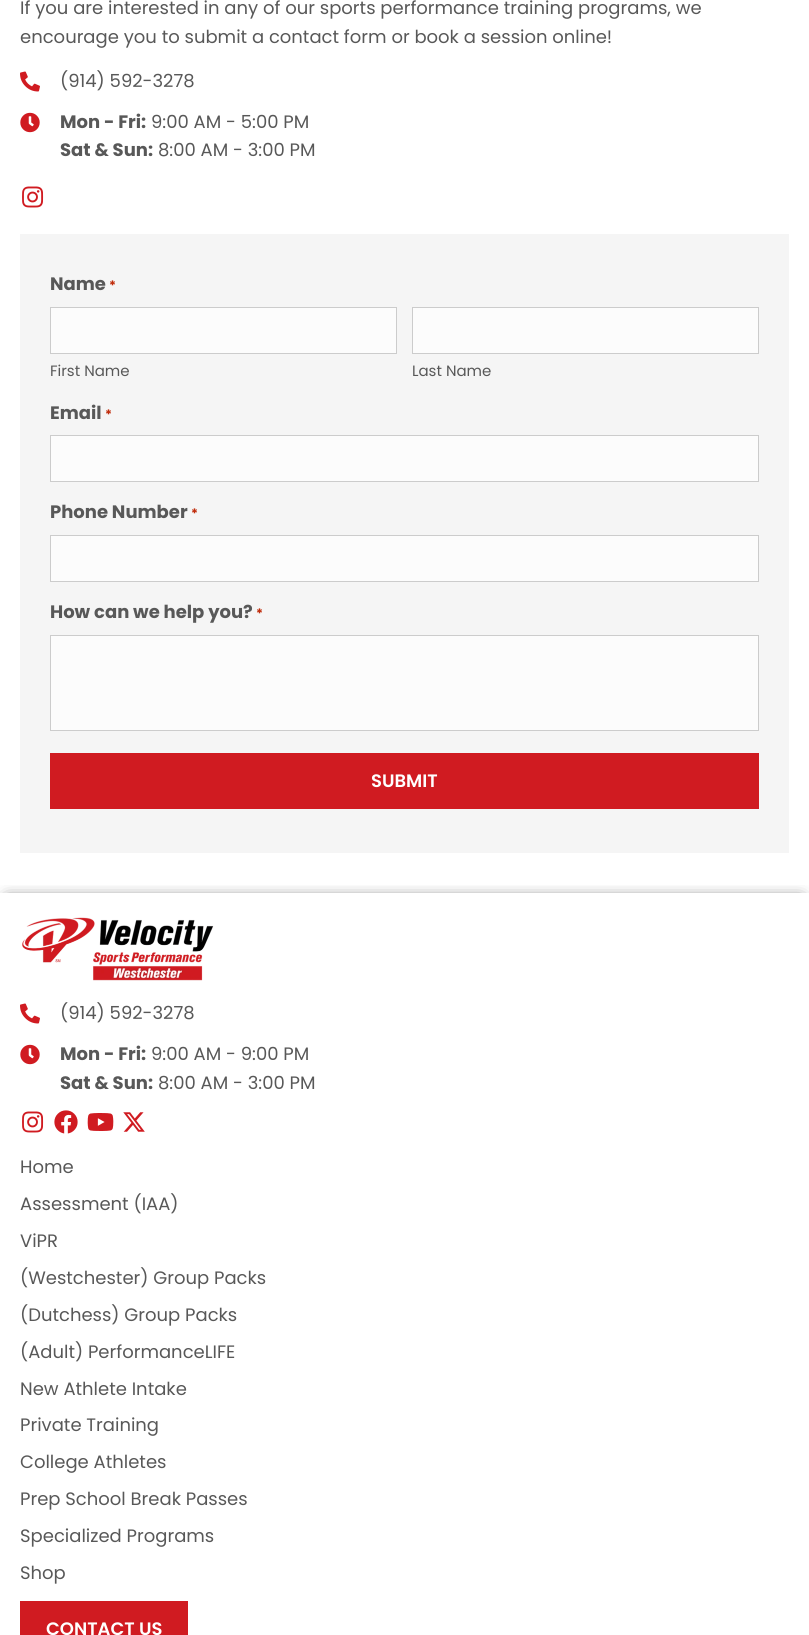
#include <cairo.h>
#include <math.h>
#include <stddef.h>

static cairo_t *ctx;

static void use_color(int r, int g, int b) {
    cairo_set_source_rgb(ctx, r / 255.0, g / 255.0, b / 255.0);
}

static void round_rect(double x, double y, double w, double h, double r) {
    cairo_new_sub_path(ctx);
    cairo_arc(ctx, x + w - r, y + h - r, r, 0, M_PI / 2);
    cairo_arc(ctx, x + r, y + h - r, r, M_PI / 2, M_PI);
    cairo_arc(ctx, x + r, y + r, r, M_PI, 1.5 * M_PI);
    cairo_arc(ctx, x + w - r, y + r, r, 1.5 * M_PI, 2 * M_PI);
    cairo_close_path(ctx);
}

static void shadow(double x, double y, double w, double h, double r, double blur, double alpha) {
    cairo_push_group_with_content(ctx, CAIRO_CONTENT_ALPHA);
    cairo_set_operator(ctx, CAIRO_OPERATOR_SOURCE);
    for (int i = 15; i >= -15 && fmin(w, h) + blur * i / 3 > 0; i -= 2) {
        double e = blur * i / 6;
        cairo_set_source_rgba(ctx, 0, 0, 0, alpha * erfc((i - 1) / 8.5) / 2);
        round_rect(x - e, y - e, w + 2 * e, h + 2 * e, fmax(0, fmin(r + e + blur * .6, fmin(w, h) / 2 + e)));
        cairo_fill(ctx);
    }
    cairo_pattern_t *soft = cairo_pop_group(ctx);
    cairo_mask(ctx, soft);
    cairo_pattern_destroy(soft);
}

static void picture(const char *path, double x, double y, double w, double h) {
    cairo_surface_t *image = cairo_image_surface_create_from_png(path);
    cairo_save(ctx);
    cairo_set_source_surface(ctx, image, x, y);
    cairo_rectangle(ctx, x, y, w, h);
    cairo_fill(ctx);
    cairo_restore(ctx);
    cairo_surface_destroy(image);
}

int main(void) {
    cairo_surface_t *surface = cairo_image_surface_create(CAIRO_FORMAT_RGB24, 809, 1635);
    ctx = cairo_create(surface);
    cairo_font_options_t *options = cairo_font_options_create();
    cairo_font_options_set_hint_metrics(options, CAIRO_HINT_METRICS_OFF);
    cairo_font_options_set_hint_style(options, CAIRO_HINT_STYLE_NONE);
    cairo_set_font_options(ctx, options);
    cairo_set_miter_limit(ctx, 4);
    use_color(255, 255, 255);
    cairo_paint(ctx);
    cairo_select_font_face(ctx, "Poppins", CAIRO_FONT_SLANT_NORMAL, CAIRO_FONT_WEIGHT_NORMAL);
    cairo_set_font_size(ctx, 18);
    use_color(88, 88, 88);
    cairo_move_to(ctx, 20, 14);
    cairo_show_text(ctx, "If you are interested in any of our sports performance training programs, we");
    cairo_move_to(ctx, 20, 43);
    cairo_show_text(ctx, "encourage you to submit a contact form or book a session online!");
    picture("img1.png", 20, 71, 20, 21);
    cairo_move_to(ctx, 60, 87);
    cairo_show_text(ctx, "(914) 592-3278");
    picture("img2.png", 20, 112, 20, 21);
    cairo_select_font_face(ctx, "Poppins", CAIRO_FONT_SLANT_NORMAL, CAIRO_FONT_WEIGHT_BOLD);
    cairo_move_to(ctx, 60, 128);
    cairo_show_text(ctx, "Mon - Fri:");
    cairo_select_font_face(ctx, "Poppins", CAIRO_FONT_SLANT_NORMAL, CAIRO_FONT_WEIGHT_NORMAL);
    cairo_move_to(ctx, 151, 128);
    cairo_show_text(ctx, "9:00 AM - 5:00 PM");
    cairo_select_font_face(ctx, "Poppins", CAIRO_FONT_SLANT_NORMAL, CAIRO_FONT_WEIGHT_BOLD);
    cairo_move_to(ctx, 60, 156);
    cairo_show_text(ctx, "Sat & Sun:");
    cairo_select_font_face(ctx, "Poppins", CAIRO_FONT_SLANT_NORMAL, CAIRO_FONT_WEIGHT_NORMAL);
    cairo_move_to(ctx, 158, 156);
    cairo_show_text(ctx, "8:00 AM - 3:00 PM");
    picture("img3.png", 22, 186, 22, 22);
    use_color(245, 245, 245);
    cairo_rectangle(ctx, 20, 234, 769, 619);
    cairo_fill(ctx);
    cairo_select_font_face(ctx, "Poppins", CAIRO_FONT_SLANT_NORMAL, CAIRO_FONT_WEIGHT_BOLD);
    use_color(88, 88, 88);
    cairo_move_to(ctx, 50, 290);
    cairo_show_text(ctx, "Name");
    cairo_set_font_size(ctx, 13);
    use_color(192, 43, 10);
    cairo_move_to(ctx, 109, 290);
    cairo_show_text(ctx, "*");
    use_color(252, 252, 252);
    cairo_rectangle(ctx, 50.5, 307.5, 346, 46);
    cairo_fill_preserve(ctx);
    use_color(204, 204, 204);
    cairo_set_line_width(ctx, 1);
    cairo_stroke(ctx);
    cairo_select_font_face(ctx, "Poppins", CAIRO_FONT_SLANT_NORMAL, CAIRO_FONT_WEIGHT_NORMAL);
    cairo_set_font_size(ctx, 15);
    use_color(88, 88, 88);
    cairo_move_to(ctx, 50, 376);
    cairo_show_text(ctx, "First Name");
    use_color(252, 252, 252);
    cairo_rectangle(ctx, 412.5, 307.5, 346, 46);
    cairo_fill_preserve(ctx);
    use_color(204, 204, 204);
    cairo_stroke(ctx);
    use_color(88, 88, 88);
    cairo_move_to(ctx, 412, 376);
    cairo_show_text(ctx, "Last Name");
    cairo_select_font_face(ctx, "Poppins", CAIRO_FONT_SLANT_NORMAL, CAIRO_FONT_WEIGHT_BOLD);
    cairo_set_font_size(ctx, 18);
    cairo_move_to(ctx, 50, 419);
    cairo_show_text(ctx, "Email");
    cairo_set_font_size(ctx, 13);
    use_color(192, 43, 10);
    cairo_move_to(ctx, 105, 419);
    cairo_show_text(ctx, "*");
    use_color(252, 252, 252);
    cairo_rectangle(ctx, 50.5, 435.5, 708, 46);
    cairo_fill_preserve(ctx);
    use_color(204, 204, 204);
    cairo_stroke(ctx);
    cairo_set_font_size(ctx, 18);
    use_color(88, 88, 88);
    cairo_move_to(ctx, 50, 518);
    cairo_show_text(ctx, "Phone Number");
    cairo_set_font_size(ctx, 13);
    use_color(192, 43, 10);
    cairo_move_to(ctx, 191, 518);
    cairo_show_text(ctx, "*");
    use_color(252, 252, 252);
    cairo_rectangle(ctx, 50.5, 535.5, 708, 46);
    cairo_fill_preserve(ctx);
    use_color(204, 204, 204);
    cairo_stroke(ctx);
    cairo_set_font_size(ctx, 18);
    use_color(88, 88, 88);
    cairo_move_to(ctx, 50, 618);
    cairo_show_text(ctx, "How can we help you?");
    cairo_set_font_size(ctx, 13);
    use_color(192, 43, 10);
    cairo_move_to(ctx, 256, 618);
    cairo_show_text(ctx, "*");
    use_color(252, 252, 252);
    cairo_rectangle(ctx, 50.5, 635.5, 708, 95);
    cairo_fill_preserve(ctx);
    use_color(204, 204, 204);
    cairo_stroke(ctx);
    use_color(208, 27, 33);
    cairo_rectangle(ctx, 50, 753, 709, 56);
    cairo_fill(ctx);
    cairo_select_font_face(ctx, "Poppins SemiBold", CAIRO_FONT_SLANT_NORMAL, CAIRO_FONT_WEIGHT_NORMAL);
    cairo_set_font_size(ctx, 18);
    use_color(255, 255, 255);
    cairo_move_to(ctx, 371, 787);
    cairo_show_text(ctx, "SUBMIT");
    cairo_save(ctx);
    cairo_rectangle(ctx, 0, 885, 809, 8);
    cairo_clip(ctx);
    use_color(0, 0, 0);
    shadow(8, 901, 793, 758, 0, 8, 1);
    cairo_restore(ctx);
    picture("img4.png", 22, 917, 192, 64);
    picture("img1.png", 20, 1003, 20, 21);
    cairo_select_font_face(ctx, "Poppins", CAIRO_FONT_SLANT_NORMAL, CAIRO_FONT_WEIGHT_NORMAL);
    use_color(88, 88, 88);
    cairo_move_to(ctx, 60, 1019);
    cairo_show_text(ctx, "(914) 592-3278");
    picture("img2.png", 20, 1044, 20, 21);
    cairo_select_font_face(ctx, "Poppins", CAIRO_FONT_SLANT_NORMAL, CAIRO_FONT_WEIGHT_BOLD);
    cairo_move_to(ctx, 60, 1060);
    cairo_show_text(ctx, "Mon - Fri:");
    cairo_select_font_face(ctx, "Poppins", CAIRO_FONT_SLANT_NORMAL, CAIRO_FONT_WEIGHT_NORMAL);
    cairo_move_to(ctx, 151, 1060);
    cairo_show_text(ctx, "9:00 AM - 9:00 PM");
    cairo_select_font_face(ctx, "Poppins", CAIRO_FONT_SLANT_NORMAL, CAIRO_FONT_WEIGHT_BOLD);
    cairo_move_to(ctx, 60, 1089);
    cairo_show_text(ctx, "Sat & Sun:");
    cairo_select_font_face(ctx, "Poppins", CAIRO_FONT_SLANT_NORMAL, CAIRO_FONT_WEIGHT_NORMAL);
    cairo_move_to(ctx, 158, 1089);
    cairo_show_text(ctx, "8:00 AM - 3:00 PM");
    picture("img3.png", 22, 1111, 22, 22);
    picture("img5.png", 54, 1110, 24, 24);
    picture("img6.png", 87, 1113, 27, 18);
    picture("img7.png", 123, 1112, 22, 20);
    cairo_move_to(ctx, 20, 1173);
    cairo_show_text(ctx, "Home");
    cairo_move_to(ctx, 20, 1210);
    cairo_show_text(ctx, "Assessment (IAA)");
    cairo_move_to(ctx, 20, 1247);
    cairo_show_text(ctx, "ViPR");
    cairo_move_to(ctx, 20, 1284);
    cairo_show_text(ctx, "(Westchester) Group Packs");
    cairo_move_to(ctx, 20, 1321);
    cairo_show_text(ctx, "(Dutchess) Group Packs");
    cairo_move_to(ctx, 20, 1358);
    cairo_show_text(ctx, "(Adult) PerformanceLIFE");
    cairo_move_to(ctx, 20, 1395);
    cairo_show_text(ctx, "New Athlete Intake");
    cairo_move_to(ctx, 20, 1431);
    cairo_show_text(ctx, "Private Training");
    cairo_move_to(ctx, 20, 1468);
    cairo_show_text(ctx, "College Athletes");
    cairo_move_to(ctx, 20, 1505);
    cairo_show_text(ctx, "Prep School Break Passes");
    cairo_move_to(ctx, 20, 1542);
    cairo_show_text(ctx, "Specialized Programs");
    cairo_move_to(ctx, 20, 1579);
    cairo_show_text(ctx, "Shop");
    use_color(208, 27, 33);
    cairo_rectangle(ctx, 20, 1601, 168, 34);
    cairo_fill(ctx);
    cairo_select_font_face(ctx, "Poppins SemiBold", CAIRO_FONT_SLANT_NORMAL, CAIRO_FONT_WEIGHT_NORMAL);
    use_color(255, 255, 255);
    cairo_move_to(ctx, 46, 1635);
    cairo_show_text(ctx, "CONTACT US");
    cairo_surface_write_to_png(surface, "result.png");
    cairo_font_options_destroy(options);
    cairo_destroy(ctx);
    cairo_surface_destroy(surface);
    return 0;
}
